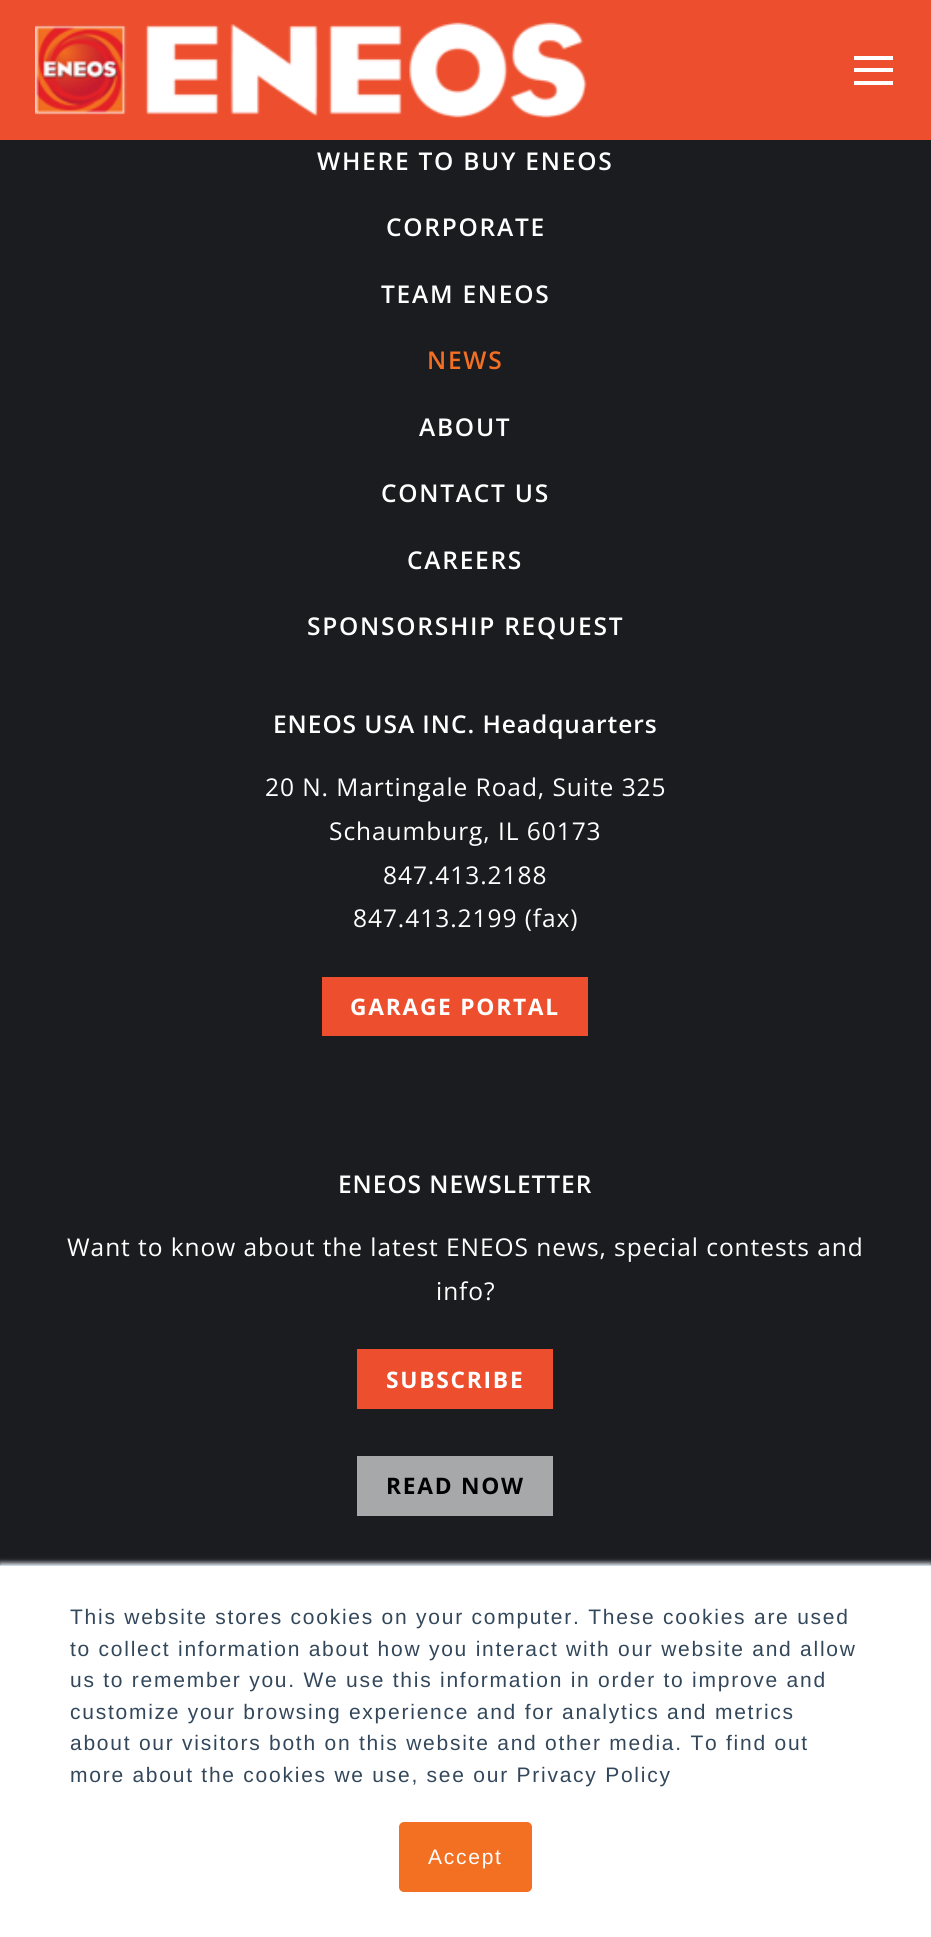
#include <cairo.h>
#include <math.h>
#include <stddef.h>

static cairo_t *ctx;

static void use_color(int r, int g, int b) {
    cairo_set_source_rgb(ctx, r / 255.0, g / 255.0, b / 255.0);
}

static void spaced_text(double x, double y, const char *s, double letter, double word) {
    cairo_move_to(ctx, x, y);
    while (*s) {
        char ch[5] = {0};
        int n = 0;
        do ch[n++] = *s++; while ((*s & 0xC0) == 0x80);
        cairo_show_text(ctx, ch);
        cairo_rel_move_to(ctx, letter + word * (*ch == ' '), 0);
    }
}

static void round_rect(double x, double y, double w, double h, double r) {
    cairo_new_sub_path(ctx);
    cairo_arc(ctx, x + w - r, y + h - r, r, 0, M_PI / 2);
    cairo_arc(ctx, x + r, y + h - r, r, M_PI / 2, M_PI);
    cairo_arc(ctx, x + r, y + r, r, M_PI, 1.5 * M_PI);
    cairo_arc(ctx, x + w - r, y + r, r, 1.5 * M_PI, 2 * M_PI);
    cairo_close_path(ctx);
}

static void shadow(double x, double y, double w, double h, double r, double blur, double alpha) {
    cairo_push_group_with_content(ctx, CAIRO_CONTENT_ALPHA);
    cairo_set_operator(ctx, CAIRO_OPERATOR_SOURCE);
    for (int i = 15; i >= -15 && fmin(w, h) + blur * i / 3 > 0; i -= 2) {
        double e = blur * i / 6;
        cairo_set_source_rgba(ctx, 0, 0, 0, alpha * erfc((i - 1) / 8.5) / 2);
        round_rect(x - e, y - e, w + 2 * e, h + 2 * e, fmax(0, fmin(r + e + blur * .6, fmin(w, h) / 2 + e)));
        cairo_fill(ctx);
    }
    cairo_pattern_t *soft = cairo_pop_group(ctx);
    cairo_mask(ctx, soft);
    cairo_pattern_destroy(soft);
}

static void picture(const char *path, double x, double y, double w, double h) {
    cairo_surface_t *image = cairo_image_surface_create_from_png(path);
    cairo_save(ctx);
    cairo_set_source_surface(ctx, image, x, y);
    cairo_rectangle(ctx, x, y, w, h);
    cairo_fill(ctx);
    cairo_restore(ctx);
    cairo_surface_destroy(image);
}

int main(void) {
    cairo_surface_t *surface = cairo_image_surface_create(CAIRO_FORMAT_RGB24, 931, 1937);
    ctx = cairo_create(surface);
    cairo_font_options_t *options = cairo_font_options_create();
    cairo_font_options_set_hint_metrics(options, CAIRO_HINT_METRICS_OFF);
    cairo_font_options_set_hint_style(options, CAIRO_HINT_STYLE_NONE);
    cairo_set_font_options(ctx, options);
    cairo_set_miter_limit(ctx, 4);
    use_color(26, 28, 32);
    cairo_paint(ctx);
    use_color(237, 79, 46);
    cairo_rectangle(ctx, 0, 0, 931, 140);
    cairo_fill(ctx);
    picture("img1.png", 35, 22, 552, 96);
    use_color(255, 255, 255);
    cairo_rectangle(ctx, 854, 56, 39, 4);
    cairo_fill(ctx);
    cairo_rectangle(ctx, 854, 68, 39, 4);
    cairo_fill(ctx);
    cairo_rectangle(ctx, 854, 81, 39, 4);
    cairo_fill(ctx);
    cairo_select_font_face(ctx, "Open Sans SemiBold", CAIRO_FONT_SLANT_NORMAL, CAIRO_FONT_WEIGHT_NORMAL);
    cairo_set_font_size(ctx, 24.5);
    spaced_text(317, 170, "WHERE TO BUY ENEOS", 1.75, 0);
    spaced_text(386, 236, "CORPORATE", 1.75, 0);
    spaced_text(381, 303, "TEAM ENEOS", 1.75, 0);
    use_color(243, 111, 33);
    spaced_text(427, 369, "NEWS", 1.75, 0);
    use_color(255, 255, 255);
    spaced_text(419, 436, "ABOUT", 1.75, 0);
    spaced_text(381, 502, "CONTACT US", 1.75, 0);
    spaced_text(407, 569, "CAREERS", 1.75, 0);
    spaced_text(307, 635, "SPONSORSHIP REQUEST", 1.75, 0);
    spaced_text(273, 733, "ENEOS USA INC. Headquarters", 0.95, 0);
    cairo_select_font_face(ctx, "Open Sans", CAIRO_FONT_SLANT_NORMAL, CAIRO_FONT_WEIGHT_NORMAL);
    spaced_text(265, 796, "20 N. Martingale Road, Suite 325", 0.95, 0);
    spaced_text(329, 840, "Schaumburg, IL 60173", 0.95, 0);
    spaced_text(383, 884, "847.413.2188", 0.95, 0);
    spaced_text(353, 927, "847.413.2199 (fax)", 0.95, 0);
    use_color(237, 79, 46);
    cairo_rectangle(ctx, 322, 977, 266, 59);
    cairo_fill(ctx);
    cairo_select_font_face(ctx, "Open Sans", CAIRO_FONT_SLANT_NORMAL, CAIRO_FONT_WEIGHT_BOLD);
    cairo_set_font_size(ctx, 22.75);
    use_color(255, 255, 255);
    spaced_text(350, 1015, "GARAGE PORTAL", 1.75, 0);
    cairo_select_font_face(ctx, "Open Sans SemiBold", CAIRO_FONT_SLANT_NORMAL, CAIRO_FONT_WEIGHT_NORMAL);
    cairo_set_font_size(ctx, 24.5);
    spaced_text(338, 1193, "ENEOS NEWSLETTER", 0.95, 0);
    cairo_select_font_face(ctx, "Open Sans", CAIRO_FONT_SLANT_NORMAL, CAIRO_FONT_WEIGHT_NORMAL);
    spaced_text(67, 1256, "Want to know about the latest ENEOS news, special contests and", 0.95, 0);
    spaced_text(436, 1300, "info?", 0.95, 0);
    use_color(237, 79, 46);
    cairo_rectangle(ctx, 357, 1349, 196, 60);
    cairo_fill(ctx);
    cairo_select_font_face(ctx, "Open Sans", CAIRO_FONT_SLANT_NORMAL, CAIRO_FONT_WEIGHT_BOLD);
    cairo_set_font_size(ctx, 22.75);
    use_color(255, 255, 255);
    spaced_text(386, 1388, "SUBSCRIBE", 1.75, 0);
    use_color(167, 168, 170);
    cairo_rectangle(ctx, 357, 1456, 196, 60);
    cairo_fill(ctx);
    use_color(0, 0, 0);
    spaced_text(386, 1494, "READ NOW", 1.75, 0);
    use_color(234, 240, 246);
    shadow(0, 1563, 931, 373, 0, 2.5, 1);
    use_color(203, 214, 226);
    cairo_rectangle(ctx, 0, 1565, 931, 1);
    cairo_fill(ctx);
    use_color(255, 255, 255);
    cairo_rectangle(ctx, 0, 1566, 931, 371);
    cairo_fill(ctx);
    cairo_select_font_face(ctx, "Liberation Sans", CAIRO_FONT_SLANT_NORMAL, CAIRO_FONT_WEIGHT_NORMAL);
    cairo_set_font_size(ctx, 21);
    use_color(51, 71, 91);
    spaced_text(70, 1624, "This website stores cookies on your computer. These cookies are used", 1.75, 0);
    spaced_text(70, 1656, "to collect information about how you interact with our website and allow", 1.75, 0);
    spaced_text(70, 1687, "us to remember you. We use this information in order to improve and", 1.75, 0);
    spaced_text(70, 1719, "customize your browsing experience and for analytics and metrics", 1.75, 0);
    spaced_text(70, 1750, "about our visitors both on this website and other media. To find out", 1.75, 0);
    spaced_text(70, 1782, "more about the cookies we use, see our Privacy Policy", 1.75, 0);
    use_color(243, 111, 33);
    round_rect(400, 1823, 131, 68, 4);
    cairo_fill_preserve(ctx);
    cairo_stroke(ctx);
    use_color(255, 255, 255);
    spaced_text(428, 1864, "Accept", 1.75, 0);
    cairo_surface_write_to_png(surface, "result.png");
    cairo_font_options_destroy(options);
    cairo_destroy(ctx);
    cairo_surface_destroy(surface);
    return 0;
}
